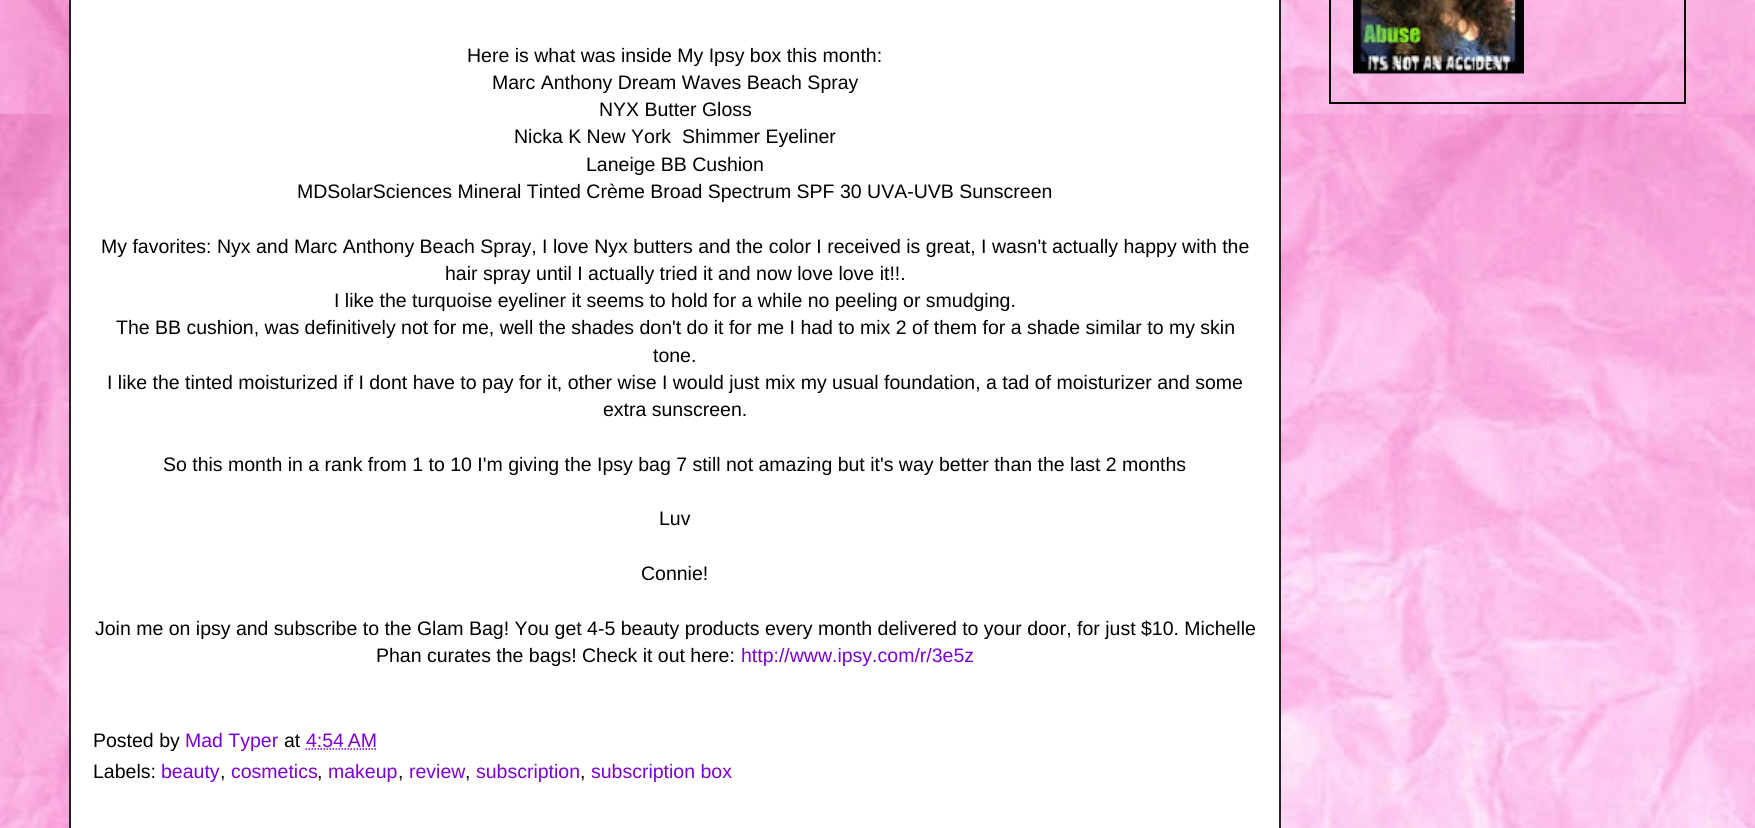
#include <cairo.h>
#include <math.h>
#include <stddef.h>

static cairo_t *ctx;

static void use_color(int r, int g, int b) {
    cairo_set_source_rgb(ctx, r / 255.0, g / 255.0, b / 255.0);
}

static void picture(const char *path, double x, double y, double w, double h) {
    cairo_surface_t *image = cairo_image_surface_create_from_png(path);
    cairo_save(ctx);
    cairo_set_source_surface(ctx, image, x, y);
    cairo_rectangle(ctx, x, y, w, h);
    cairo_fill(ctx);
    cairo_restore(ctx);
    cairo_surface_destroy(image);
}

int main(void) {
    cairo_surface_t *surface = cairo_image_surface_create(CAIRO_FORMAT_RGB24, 1755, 828);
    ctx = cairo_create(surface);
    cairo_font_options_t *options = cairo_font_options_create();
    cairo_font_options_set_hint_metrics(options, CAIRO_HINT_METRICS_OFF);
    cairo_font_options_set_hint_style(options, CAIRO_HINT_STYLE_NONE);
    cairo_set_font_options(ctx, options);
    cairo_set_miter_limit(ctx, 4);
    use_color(255, 255, 255);
    cairo_paint(ctx);
    picture("img1.png", 0, 0, 1755, 828);
    use_color(255, 255, 255);
    cairo_rectangle(ctx, 70, -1, 1210, 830);
    cairo_fill_preserve(ctx);
    use_color(34, 34, 34);
    cairo_stroke(ctx);
    cairo_select_font_face(ctx, "Liberation Sans", CAIRO_FONT_SLANT_NORMAL, CAIRO_FONT_WEIGHT_NORMAL);
    cairo_set_font_size(ctx, 19.5);
    use_color(0, 0, 0);
    cairo_move_to(ctx, 467, 62);
    cairo_show_text(ctx, "Here is what was inside My Ipsy box this month:");
    cairo_move_to(ctx, 492, 89);
    cairo_show_text(ctx, "Marc Anthony Dream Waves Beach Spray");
    cairo_move_to(ctx, 599, 116);
    cairo_show_text(ctx, "NYX Butter Gloss");
    cairo_move_to(ctx, 514, 143);
    cairo_show_text(ctx, "Nicka K New York  Shimmer Eyeliner");
    cairo_move_to(ctx, 586, 171);
    cairo_show_text(ctx, "Laneige BB Cushion");
    cairo_move_to(ctx, 297, 198);
    cairo_show_text(ctx, "MDSolarSciences Mineral Tinted Crème Broad Spectrum SPF 30 UVA-UVB Sunscreen");
    cairo_move_to(ctx, 101, 253);
    cairo_show_text(ctx, "My favorites: Nyx and Marc Anthony Beach Spray, I love Nyx butters and the color I received is great, I wasn't actually happy with the");
    cairo_move_to(ctx, 445, 280);
    cairo_show_text(ctx, "hair spray until I actually tried it and now love love it!!.");
    cairo_move_to(ctx, 334, 307);
    cairo_show_text(ctx, "I like the turquoise eyeliner it seems to hold for a while no peeling or smudging.");
    cairo_move_to(ctx, 116, 334);
    cairo_show_text(ctx, "The BB cushion, was definitively not for me, well the shades don't do it for me I had to mix 2 of them for a shade similar to my skin");
    cairo_move_to(ctx, 653, 362);
    cairo_show_text(ctx, "tone.");
    cairo_move_to(ctx, 107, 389);
    cairo_show_text(ctx, "I like the tinted moisturized if I dont have to pay for it, other wise I would just mix my usual foundation, a tad of moisturizer and some");
    cairo_move_to(ctx, 603, 416);
    cairo_show_text(ctx, "extra sunscreen.");
    cairo_move_to(ctx, 163, 471);
    cairo_show_text(ctx, "So this month in a rank from 1 to 10 I'm giving the Ipsy bag 7 still not amazing but it's way better than the last 2 months");
    cairo_move_to(ctx, 659, 525);
    cairo_show_text(ctx, "Luv");
    cairo_move_to(ctx, 641, 580);
    cairo_show_text(ctx, "Connie!");
    cairo_move_to(ctx, 95, 635);
    cairo_show_text(ctx, "Join me on ipsy and subscribe to the Glam Bag! You get 4-5 beauty products every month delivered to your door, for just $10. Michelle");
    cairo_move_to(ctx, 376, 662);
    cairo_show_text(ctx, "Phan curates the bags! Check it out here:");
    use_color(125, 0, 218);
    cairo_move_to(ctx, 741, 662);
    cairo_show_text(ctx, "http://www.ipsy.com/r/3e5z");
    use_color(0, 0, 0);
    cairo_move_to(ctx, 93, 747);
    cairo_show_text(ctx, "Posted by");
    use_color(125, 0, 218);
    cairo_move_to(ctx, 185, 747);
    cairo_show_text(ctx, "Mad Typer");
    use_color(0, 0, 0);
    cairo_move_to(ctx, 284, 747);
    cairo_show_text(ctx, "at");
    use_color(125, 0, 218);
    cairo_move_to(ctx, 306, 747);
    cairo_show_text(ctx, "4:54 AM");
    cairo_new_path(ctx);
    cairo_move_to(ctx, 305.5, 749);
    cairo_line_to(ctx, 376.5, 749);
    cairo_set_line_width(ctx, 1.5);
    cairo_set_dash(ctx, (double[]){1.5, 1.5}, 2, 0);
    cairo_stroke(ctx);
    use_color(0, 0, 0);
    cairo_move_to(ctx, 93, 778);
    cairo_show_text(ctx, "Labels:");
    use_color(125, 0, 218);
    cairo_move_to(ctx, 161, 778);
    cairo_show_text(ctx, "beauty");
    use_color(0, 0, 0);
    cairo_move_to(ctx, 220, 778);
    cairo_show_text(ctx, ",");
    use_color(125, 0, 218);
    cairo_move_to(ctx, 231, 778);
    cairo_show_text(ctx, "cosmetics");
    use_color(0, 0, 0);
    cairo_move_to(ctx, 317, 778);
    cairo_show_text(ctx, ",");
    use_color(125, 0, 218);
    cairo_move_to(ctx, 328, 778);
    cairo_show_text(ctx, "makeup");
    use_color(0, 0, 0);
    cairo_move_to(ctx, 398, 778);
    cairo_show_text(ctx, ",");
    use_color(125, 0, 218);
    cairo_move_to(ctx, 409, 778);
    cairo_show_text(ctx, "review");
    use_color(0, 0, 0);
    cairo_move_to(ctx, 465, 778);
    cairo_show_text(ctx, ",");
    use_color(125, 0, 218);
    cairo_move_to(ctx, 476, 778);
    cairo_show_text(ctx, "subscription");
    use_color(0, 0, 0);
    cairo_move_to(ctx, 580, 778);
    cairo_show_text(ctx, ",");
    use_color(125, 0, 218);
    cairo_move_to(ctx, 591, 778);
    cairo_show_text(ctx, "subscription box");
    cairo_rectangle(ctx, 1330, -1, 355, 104);
    use_color(0, 0, 0);
    cairo_set_line_width(ctx, 2);
    cairo_set_dash(ctx, NULL, 0, 0);
    cairo_stroke(ctx);
    picture("img2.png", 1353, 0, 171, 74);
    cairo_surface_write_to_png(surface, "result.png");
    cairo_font_options_destroy(options);
    cairo_destroy(ctx);
    cairo_surface_destroy(surface);
    return 0;
}
